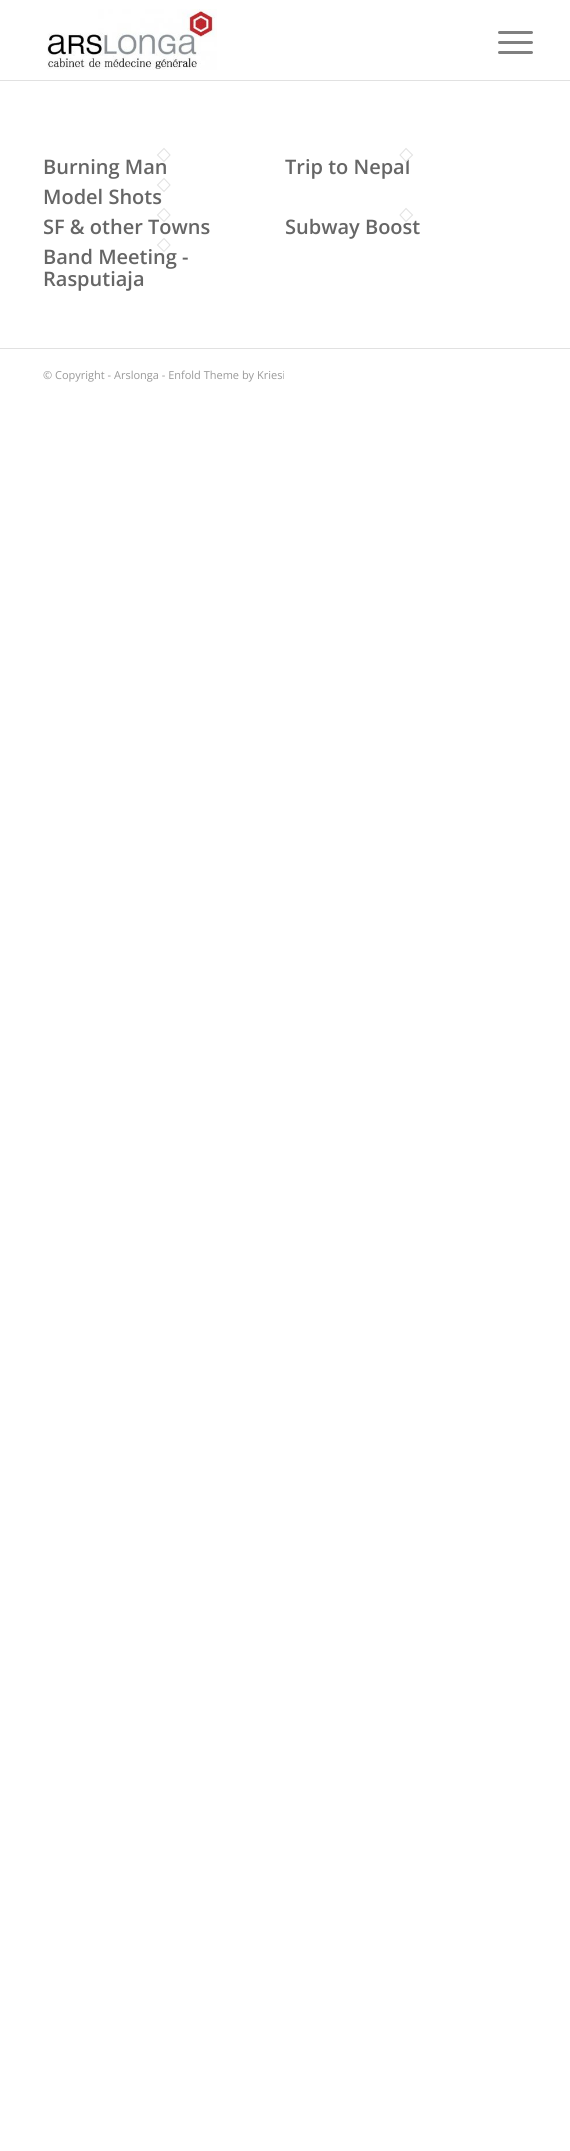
#include <cairo.h>
#include <math.h>
#include <stddef.h>

static cairo_t *ctx;

static void use_color(int r, int g, int b) {
    cairo_set_source_rgb(ctx, r / 255.0, g / 255.0, b / 255.0);
}

static void round_rect(double x, double y, double w, double h, double r) {
    cairo_new_sub_path(ctx);
    cairo_arc(ctx, x + w - r, y + h - r, r, 0, M_PI / 2);
    cairo_arc(ctx, x + r, y + h - r, r, M_PI / 2, M_PI);
    cairo_arc(ctx, x + r, y + r, r, M_PI, 1.5 * M_PI);
    cairo_arc(ctx, x + w - r, y + r, r, 1.5 * M_PI, 2 * M_PI);
    cairo_close_path(ctx);
}

static void picture(const char *path, double x, double y, double w, double h) {
    cairo_surface_t *image = cairo_image_surface_create_from_png(path);
    cairo_save(ctx);
    cairo_set_source_surface(ctx, image, x, y);
    cairo_rectangle(ctx, x, y, w, h);
    cairo_fill(ctx);
    cairo_restore(ctx);
    cairo_surface_destroy(image);
}

int main(void) {
    cairo_surface_t *surface = cairo_image_surface_create(CAIRO_FORMAT_RGB24, 570, 2151);
    ctx = cairo_create(surface);
    cairo_font_options_t *options = cairo_font_options_create();
    cairo_font_options_set_hint_metrics(options, CAIRO_HINT_METRICS_OFF);
    cairo_font_options_set_hint_style(options, CAIRO_HINT_STYLE_NONE);
    cairo_set_font_options(ctx, options);
    cairo_set_miter_limit(ctx, 4);
    use_color(255, 255, 255);
    cairo_paint(ctx);
    use_color(225, 225, 225);
    cairo_rectangle(ctx, 0, 80, 570, 1);
    cairo_fill(ctx);
    picture("img1.png", 47, 9, 170, 61);
    use_color(128, 128, 128);
    round_rect(498, 41, 35, 3, 1.5);
    cairo_fill(ctx);
    round_rect(498, 31, 35, 3, 1.5);
    cairo_fill(ctx);
    round_rect(498, 51, 35, 3, 1.5);
    cairo_fill(ctx);
    cairo_select_font_face(ctx, "Open Sans SemiBold", CAIRO_FONT_SLANT_NORMAL, CAIRO_FONT_WEIGHT_NORMAL);
    cairo_set_font_size(ctx, 20);
    use_color(102, 102, 102);
    cairo_move_to(ctx, 43, 174);
    cairo_show_text(ctx, "Burning Man");
    cairo_new_path(ctx);
    cairo_move_to(ctx, 164, 148.5);
    cairo_line_to(ctx, 170, 155);
    cairo_line_to(ctx, 164, 161.5);
    cairo_line_to(ctx, 157.5, 155);
    cairo_close_path(ctx);
    use_color(225, 225, 225);
    cairo_set_line_width(ctx, 1);
    cairo_stroke(ctx);
    use_color(102, 102, 102);
    cairo_move_to(ctx, 285, 174);
    cairo_show_text(ctx, "Trip to Nepal");
    use_color(255, 255, 255);
    cairo_new_path(ctx);
    cairo_move_to(ctx, 406, 148);
    cairo_line_to(ctx, 413, 155);
    cairo_line_to(ctx, 406, 162);
    cairo_line_to(ctx, 399, 155);
    cairo_close_path(ctx);
    cairo_fill(ctx);
    cairo_new_path(ctx);
    cairo_move_to(ctx, 406, 148.5);
    cairo_line_to(ctx, 412.5, 155);
    cairo_line_to(ctx, 406, 161.5);
    cairo_line_to(ctx, 400, 155);
    cairo_close_path(ctx);
    use_color(225, 225, 225);
    cairo_stroke(ctx);
    use_color(102, 102, 102);
    cairo_move_to(ctx, 43, 204);
    cairo_show_text(ctx, "Model Shots");
    cairo_new_path(ctx);
    cairo_move_to(ctx, 164, 178.5);
    cairo_line_to(ctx, 170, 185);
    cairo_line_to(ctx, 164, 191.5);
    cairo_line_to(ctx, 157.5, 185);
    cairo_close_path(ctx);
    use_color(225, 225, 225);
    cairo_stroke(ctx);
    use_color(102, 102, 102);
    cairo_move_to(ctx, 43, 234);
    cairo_show_text(ctx, "SF & other Towns");
    cairo_new_path(ctx);
    cairo_move_to(ctx, 164, 208.5);
    cairo_line_to(ctx, 170, 215);
    cairo_line_to(ctx, 164, 221.5);
    cairo_line_to(ctx, 157.5, 215);
    cairo_close_path(ctx);
    use_color(225, 225, 225);
    cairo_stroke(ctx);
    use_color(102, 102, 102);
    cairo_move_to(ctx, 285, 234);
    cairo_show_text(ctx, "Subway Boost");
    cairo_new_path(ctx);
    cairo_move_to(ctx, 406, 208.5);
    cairo_line_to(ctx, 412.5, 215);
    cairo_line_to(ctx, 406, 221.5);
    cairo_line_to(ctx, 400, 215);
    cairo_close_path(ctx);
    use_color(225, 225, 225);
    cairo_stroke(ctx);
    use_color(102, 102, 102);
    cairo_move_to(ctx, 43, 264);
    cairo_show_text(ctx, "Band Meeting -");
    cairo_new_path(ctx);
    cairo_move_to(ctx, 164, 238.5);
    cairo_line_to(ctx, 170, 245);
    cairo_line_to(ctx, 164, 251.5);
    cairo_line_to(ctx, 157.5, 245);
    cairo_close_path(ctx);
    use_color(225, 225, 225);
    cairo_stroke(ctx);
    use_color(102, 102, 102);
    cairo_move_to(ctx, 43, 286);
    cairo_show_text(ctx, "Rasputiaja");
    use_color(225, 225, 225);
    cairo_rectangle(ctx, 0, 348, 570, 1);
    cairo_fill(ctx);
    cairo_select_font_face(ctx, "Open Sans", CAIRO_FONT_SLANT_NORMAL, CAIRO_FONT_WEIGHT_NORMAL);
    cairo_set_font_size(ctx, 11);
    use_color(153, 153, 153);
    cairo_move_to(ctx, 43, 379);
    cairo_show_text(ctx, "© Copyright - Arslonga - Enfold Theme by Kriesi");
    cairo_surface_write_to_png(surface, "result.png");
    cairo_font_options_destroy(options);
    cairo_destroy(ctx);
    cairo_surface_destroy(surface);
    return 0;
}
